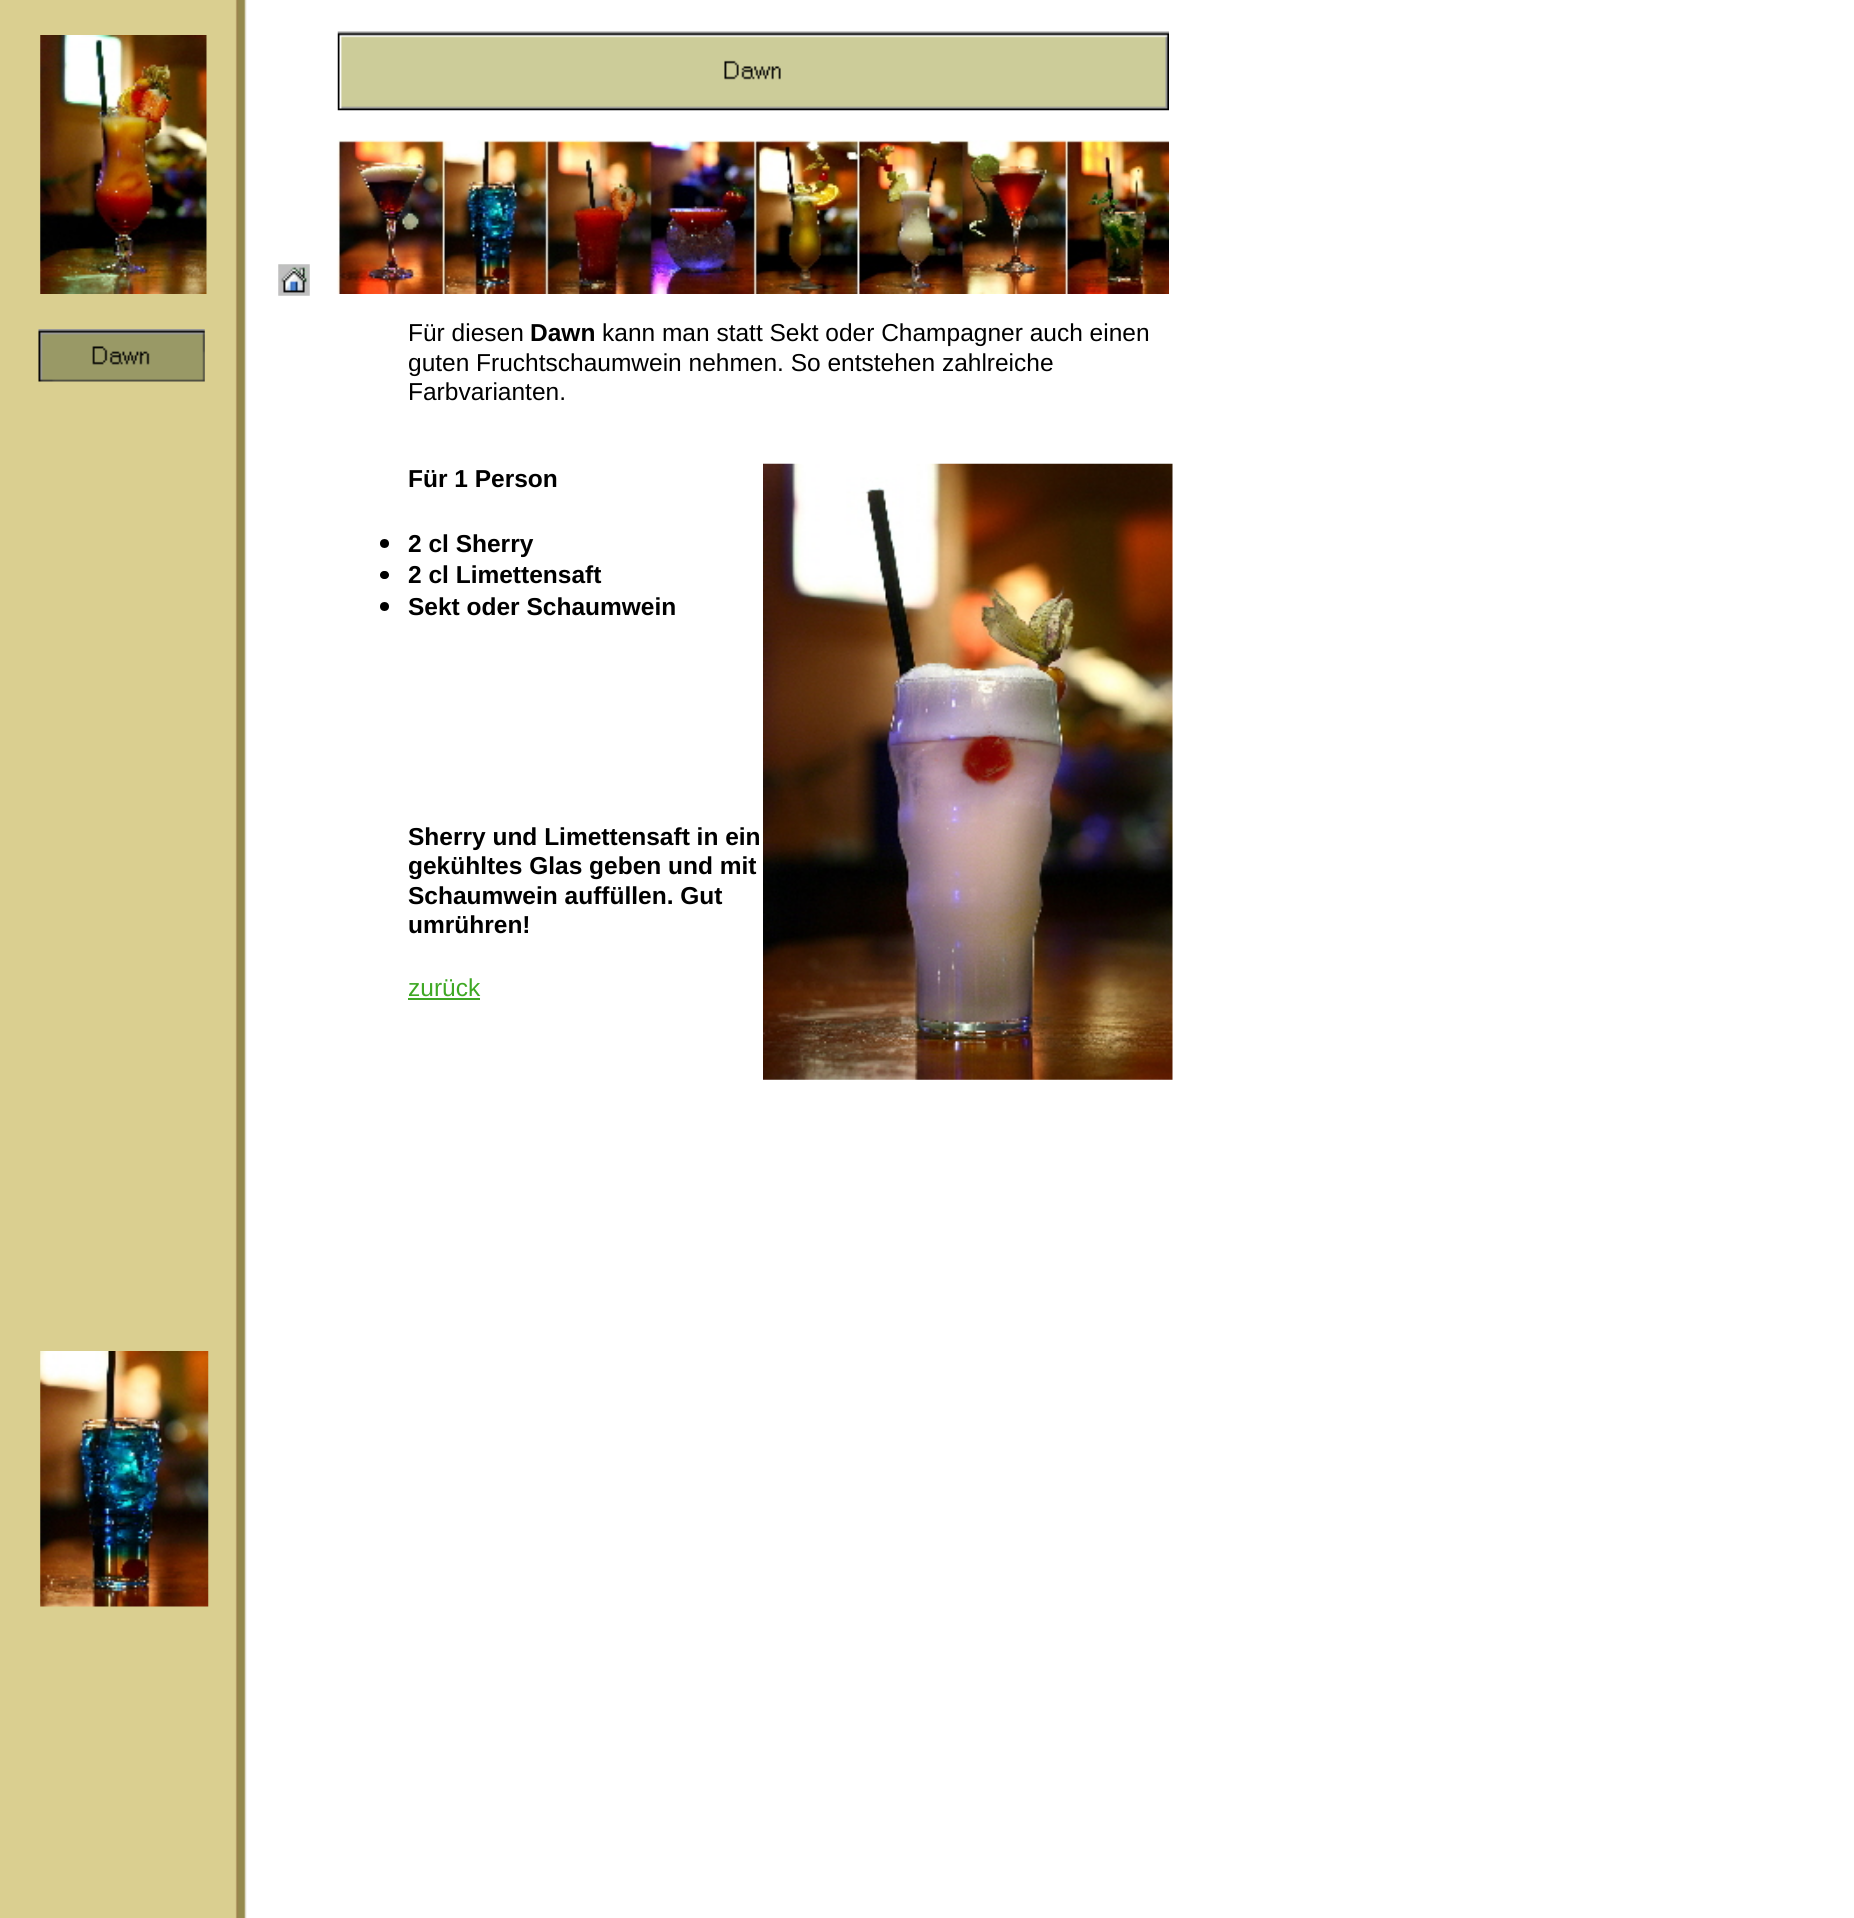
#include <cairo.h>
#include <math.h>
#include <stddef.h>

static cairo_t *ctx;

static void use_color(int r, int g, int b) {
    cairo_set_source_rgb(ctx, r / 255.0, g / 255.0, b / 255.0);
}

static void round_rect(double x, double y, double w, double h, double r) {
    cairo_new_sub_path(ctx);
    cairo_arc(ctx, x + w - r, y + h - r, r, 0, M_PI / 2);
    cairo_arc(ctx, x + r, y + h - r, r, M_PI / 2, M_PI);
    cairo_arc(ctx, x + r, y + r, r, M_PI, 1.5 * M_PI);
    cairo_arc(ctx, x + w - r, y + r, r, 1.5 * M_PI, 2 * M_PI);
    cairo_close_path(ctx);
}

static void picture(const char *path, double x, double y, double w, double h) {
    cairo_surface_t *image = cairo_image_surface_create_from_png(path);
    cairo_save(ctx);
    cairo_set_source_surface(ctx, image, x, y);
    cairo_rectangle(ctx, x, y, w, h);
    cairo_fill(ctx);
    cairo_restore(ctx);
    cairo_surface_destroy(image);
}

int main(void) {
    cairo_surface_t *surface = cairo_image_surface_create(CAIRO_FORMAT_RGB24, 1854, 1918);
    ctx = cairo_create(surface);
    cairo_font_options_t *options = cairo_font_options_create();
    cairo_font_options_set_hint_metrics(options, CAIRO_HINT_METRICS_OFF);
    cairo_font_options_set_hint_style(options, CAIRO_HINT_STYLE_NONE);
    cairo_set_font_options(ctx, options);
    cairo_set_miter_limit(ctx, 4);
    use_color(255, 255, 255);
    cairo_paint(ctx);
    picture("img1.png", 0, 0, 247, 1918);
    picture("img2.png", 40, 35, 167, 259);
    picture("img3.png", 278, 264, 32, 32);
    picture("img4.png", 38, 329, 167, 53);
    picture("img5.png", 40, 1351, 169, 256);
    picture("img6.png", 337, 31, 832, 80);
    picture("img7.png", 337, 140, 832, 154);
    cairo_select_font_face(ctx, "Liberation Sans", CAIRO_FONT_SLANT_NORMAL, CAIRO_FONT_WEIGHT_NORMAL);
    cairo_set_font_size(ctx, 24.5);
    use_color(0, 0, 0);
    cairo_move_to(ctx, 408, 341);
    cairo_show_text(ctx, "Für diesen");
    cairo_select_font_face(ctx, "Liberation Sans", CAIRO_FONT_SLANT_NORMAL, CAIRO_FONT_WEIGHT_BOLD);
    cairo_move_to(ctx, 530, 341);
    cairo_show_text(ctx, "Dawn");
    cairo_select_font_face(ctx, "Liberation Sans", CAIRO_FONT_SLANT_NORMAL, CAIRO_FONT_WEIGHT_NORMAL);
    cairo_move_to(ctx, 602, 341);
    cairo_show_text(ctx, "kann man statt Sekt oder Champagner auch einen");
    cairo_move_to(ctx, 408, 371);
    cairo_show_text(ctx, "guten Fruchtschaumwein nehmen. So entstehen zahlreiche");
    cairo_move_to(ctx, 408, 400);
    cairo_show_text(ctx, "Farbvarianten.");
    cairo_select_font_face(ctx, "Liberation Sans", CAIRO_FONT_SLANT_NORMAL, CAIRO_FONT_WEIGHT_BOLD);
    cairo_move_to(ctx, 408, 487);
    cairo_show_text(ctx, "Für 1 Person");
    cairo_new_path(ctx);
    cairo_arc(ctx, 384.5, 543.5, 4.5, 0, 2 * M_PI);
    cairo_fill(ctx);
    cairo_move_to(ctx, 408, 552);
    cairo_show_text(ctx, "2 cl Sherry");
    round_rect(380, 571, 9, 8, 4);
    cairo_fill(ctx);
    cairo_move_to(ctx, 408, 583);
    cairo_show_text(ctx, "2 cl Limettensaft");
    cairo_new_path(ctx);
    cairo_arc(ctx, 384.5, 606.5, 4.5, 0, 2 * M_PI);
    cairo_fill(ctx);
    cairo_move_to(ctx, 408, 615);
    cairo_show_text(ctx, "Sekt oder Schaumwein");
    cairo_move_to(ctx, 408, 845);
    cairo_show_text(ctx, "Sherry und Limettensaft in ein");
    cairo_move_to(ctx, 408, 874);
    cairo_show_text(ctx, "gekühltes Glas geben und mit");
    cairo_move_to(ctx, 408, 904);
    cairo_show_text(ctx, "Schaumwein auffüllen. Gut");
    cairo_move_to(ctx, 408, 933);
    cairo_show_text(ctx, "umrühren!");
    cairo_select_font_face(ctx, "Liberation Sans", CAIRO_FONT_SLANT_NORMAL, CAIRO_FONT_WEIGHT_NORMAL);
    use_color(63, 168, 36);
    cairo_move_to(ctx, 408, 996);
    cairo_show_text(ctx, "zurück");
    cairo_rectangle(ctx, 408, 998, 72, 2);
    cairo_fill(ctx);
    picture("img8.png", 763, 463, 410, 617);
    cairo_surface_write_to_png(surface, "result.png");
    cairo_font_options_destroy(options);
    cairo_destroy(ctx);
    cairo_surface_destroy(surface);
    return 0;
}
